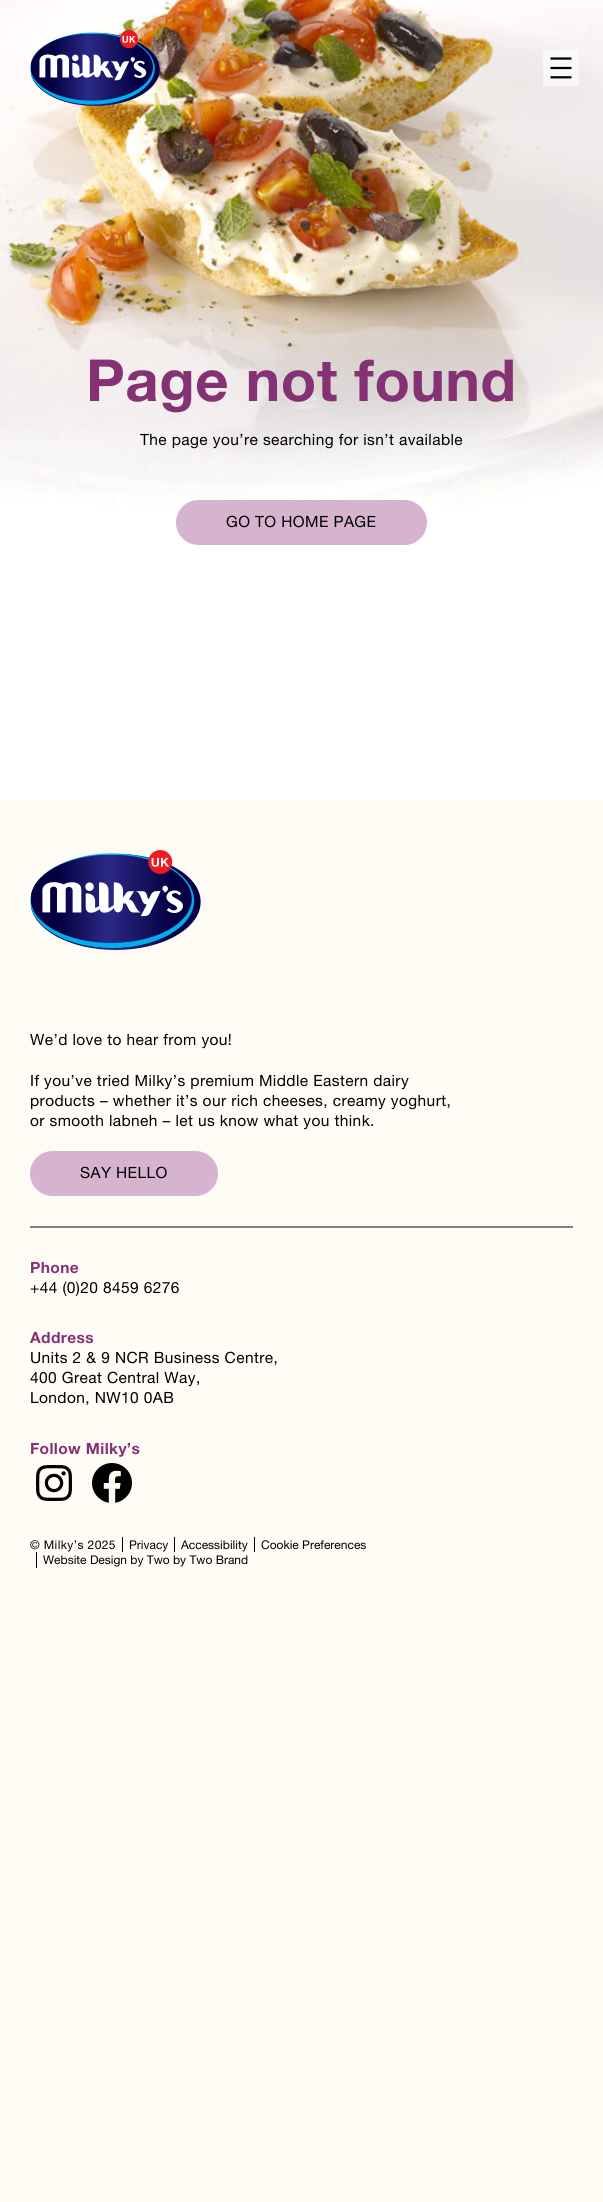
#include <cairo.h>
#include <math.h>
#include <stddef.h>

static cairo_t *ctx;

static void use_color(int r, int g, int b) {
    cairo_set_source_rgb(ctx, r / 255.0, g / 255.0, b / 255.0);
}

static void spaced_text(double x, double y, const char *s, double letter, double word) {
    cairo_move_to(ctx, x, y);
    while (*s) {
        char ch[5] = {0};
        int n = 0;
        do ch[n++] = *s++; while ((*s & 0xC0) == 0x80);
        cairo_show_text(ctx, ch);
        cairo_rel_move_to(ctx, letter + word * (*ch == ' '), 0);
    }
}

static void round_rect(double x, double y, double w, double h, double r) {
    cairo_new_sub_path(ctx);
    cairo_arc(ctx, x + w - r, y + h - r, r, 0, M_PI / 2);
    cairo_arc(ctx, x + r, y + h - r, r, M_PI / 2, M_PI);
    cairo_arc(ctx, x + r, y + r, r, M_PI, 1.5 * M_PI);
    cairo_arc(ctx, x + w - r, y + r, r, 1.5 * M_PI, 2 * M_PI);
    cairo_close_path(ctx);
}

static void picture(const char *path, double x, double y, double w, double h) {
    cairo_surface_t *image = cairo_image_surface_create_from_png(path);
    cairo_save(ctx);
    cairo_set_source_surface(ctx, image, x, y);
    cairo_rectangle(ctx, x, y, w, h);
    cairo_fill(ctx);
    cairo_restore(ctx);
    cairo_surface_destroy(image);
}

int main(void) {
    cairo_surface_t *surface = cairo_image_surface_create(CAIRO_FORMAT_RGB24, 603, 2202);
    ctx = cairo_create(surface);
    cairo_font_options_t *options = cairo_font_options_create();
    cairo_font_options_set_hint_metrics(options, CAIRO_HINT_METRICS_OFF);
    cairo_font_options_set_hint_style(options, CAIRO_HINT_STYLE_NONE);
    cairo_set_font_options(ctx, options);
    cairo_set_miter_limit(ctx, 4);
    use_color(255, 251, 245);
    cairo_paint(ctx);
    picture("img3.png", 0, 0, 603, 508);
    picture("img1.png", 30, 30, 130, 76);
    cairo_set_source_rgba(ctx, 1, 1, 1, 0.6);
    cairo_rectangle(ctx, 543, 50, 36, 36);
    cairo_fill(ctx);
    picture("img2.png", 550, 57, 22, 22);
    use_color(255, 255, 255);
    cairo_rectangle(ctx, 0, 508, 603, 292);
    cairo_fill(ctx);
    cairo_select_font_face(ctx, "Helvetica Neue", CAIRO_FONT_SLANT_NORMAL, CAIRO_FONT_WEIGHT_BOLD);
    cairo_set_font_size(ctx, 58);
    use_color(133, 50, 117);
    spaced_text(86, 401, "Page not found", 0.6, 0);
    cairo_select_font_face(ctx, "Helvetica Neue", CAIRO_FONT_SLANT_NORMAL, CAIRO_FONT_WEIGHT_NORMAL);
    cairo_set_font_size(ctx, 15.5);
    use_color(0, 0, 0);
    spaced_text(140, 445, "The page you’re searching for isn’t available", 0.4, 0);
    use_color(214, 179, 207);
    round_rect(176, 500, 251, 45, 22.5);
    cairo_fill(ctx);
    use_color(0, 0, 0);
    spaced_text(226, 527, "GO TO HOME PAGE", 0.4, 0);
    picture("img4.png", 30, 850, 171, 100);
    spaced_text(30, 1045, "We’d love to hear from you!", 0.4, 0);
    spaced_text(30, 1086, "If you’ve tried Milky’s premium Middle Eastern dairy", 0.4, 0);
    spaced_text(30, 1106, "products – whether it’s our rich cheeses, creamy yoghurt,", 0.4, 0);
    spaced_text(30, 1126, "or smooth labneh – let us know what you think.", 0.4, 0);
    use_color(214, 179, 207);
    round_rect(30, 1151, 188, 45, 22.5);
    cairo_fill(ctx);
    use_color(0, 0, 0);
    spaced_text(80, 1178, "SAY HELLO", 0.4, 0);
    use_color(128, 128, 128);
    cairo_rectangle(ctx, 30, 1226, 543, 2);
    cairo_fill(ctx);
    cairo_select_font_face(ctx, "Helvetica Neue", CAIRO_FONT_SLANT_NORMAL, CAIRO_FONT_WEIGHT_BOLD);
    use_color(133, 50, 117);
    spaced_text(30, 1273, "Phone", 0.4, 0);
    cairo_select_font_face(ctx, "Helvetica Neue", CAIRO_FONT_SLANT_NORMAL, CAIRO_FONT_WEIGHT_NORMAL);
    use_color(0, 0, 0);
    spaced_text(30, 1293, "+44 (0)20 8459 6276", 0.4, 0);
    cairo_select_font_face(ctx, "Helvetica Neue", CAIRO_FONT_SLANT_NORMAL, CAIRO_FONT_WEIGHT_BOLD);
    use_color(133, 50, 117);
    spaced_text(30, 1343, "Address", 0.4, 0);
    cairo_select_font_face(ctx, "Helvetica Neue", CAIRO_FONT_SLANT_NORMAL, CAIRO_FONT_WEIGHT_NORMAL);
    use_color(0, 0, 0);
    spaced_text(30, 1363, "Units 2 & 9 NCR Business Centre,", 0.4, 0);
    spaced_text(30, 1383, "400 Great Central Way,", 0.4, 0);
    spaced_text(30, 1403, "London, NW10 0AB", 0.4, 0);
    cairo_select_font_face(ctx, "Helvetica Neue", CAIRO_FONT_SLANT_NORMAL, CAIRO_FONT_WEIGHT_BOLD);
    use_color(133, 50, 117);
    spaced_text(30, 1454, "Follow Milky’s", 0.4, 0);
    picture("img5.png", 36, 1465, 36, 36);
    picture("img6.png", 92, 1463, 40, 40);
    cairo_select_font_face(ctx, "Helvetica Neue", CAIRO_FONT_SLANT_NORMAL, CAIRO_FONT_WEIGHT_NORMAL);
    cairo_set_font_size(ctx, 12);
    use_color(0, 0, 0);
    spaced_text(30, 1549, "© Milky’s 2025", 0.4, 0);
    cairo_rectangle(ctx, 122, 1537, 1, 15);
    cairo_fill(ctx);
    cairo_move_to(ctx, 129, 1549);
    cairo_show_text(ctx, "Privacy");
    cairo_rectangle(ctx, 174, 1537, 1, 15);
    cairo_fill(ctx);
    cairo_move_to(ctx, 181, 1549);
    cairo_show_text(ctx, "Accessibility");
    cairo_rectangle(ctx, 254, 1537, 1, 15);
    cairo_fill(ctx);
    cairo_move_to(ctx, 261, 1549);
    cairo_show_text(ctx, "Cookie Preferences");
    cairo_rectangle(ctx, 36, 1552, 1, 16);
    cairo_fill(ctx);
    cairo_move_to(ctx, 43, 1564);
    cairo_show_text(ctx, "Website Design by Two by Two Brand");
    cairo_surface_write_to_png(surface, "result.png");
    cairo_font_options_destroy(options);
    cairo_destroy(ctx);
    cairo_surface_destroy(surface);
    return 0;
}
